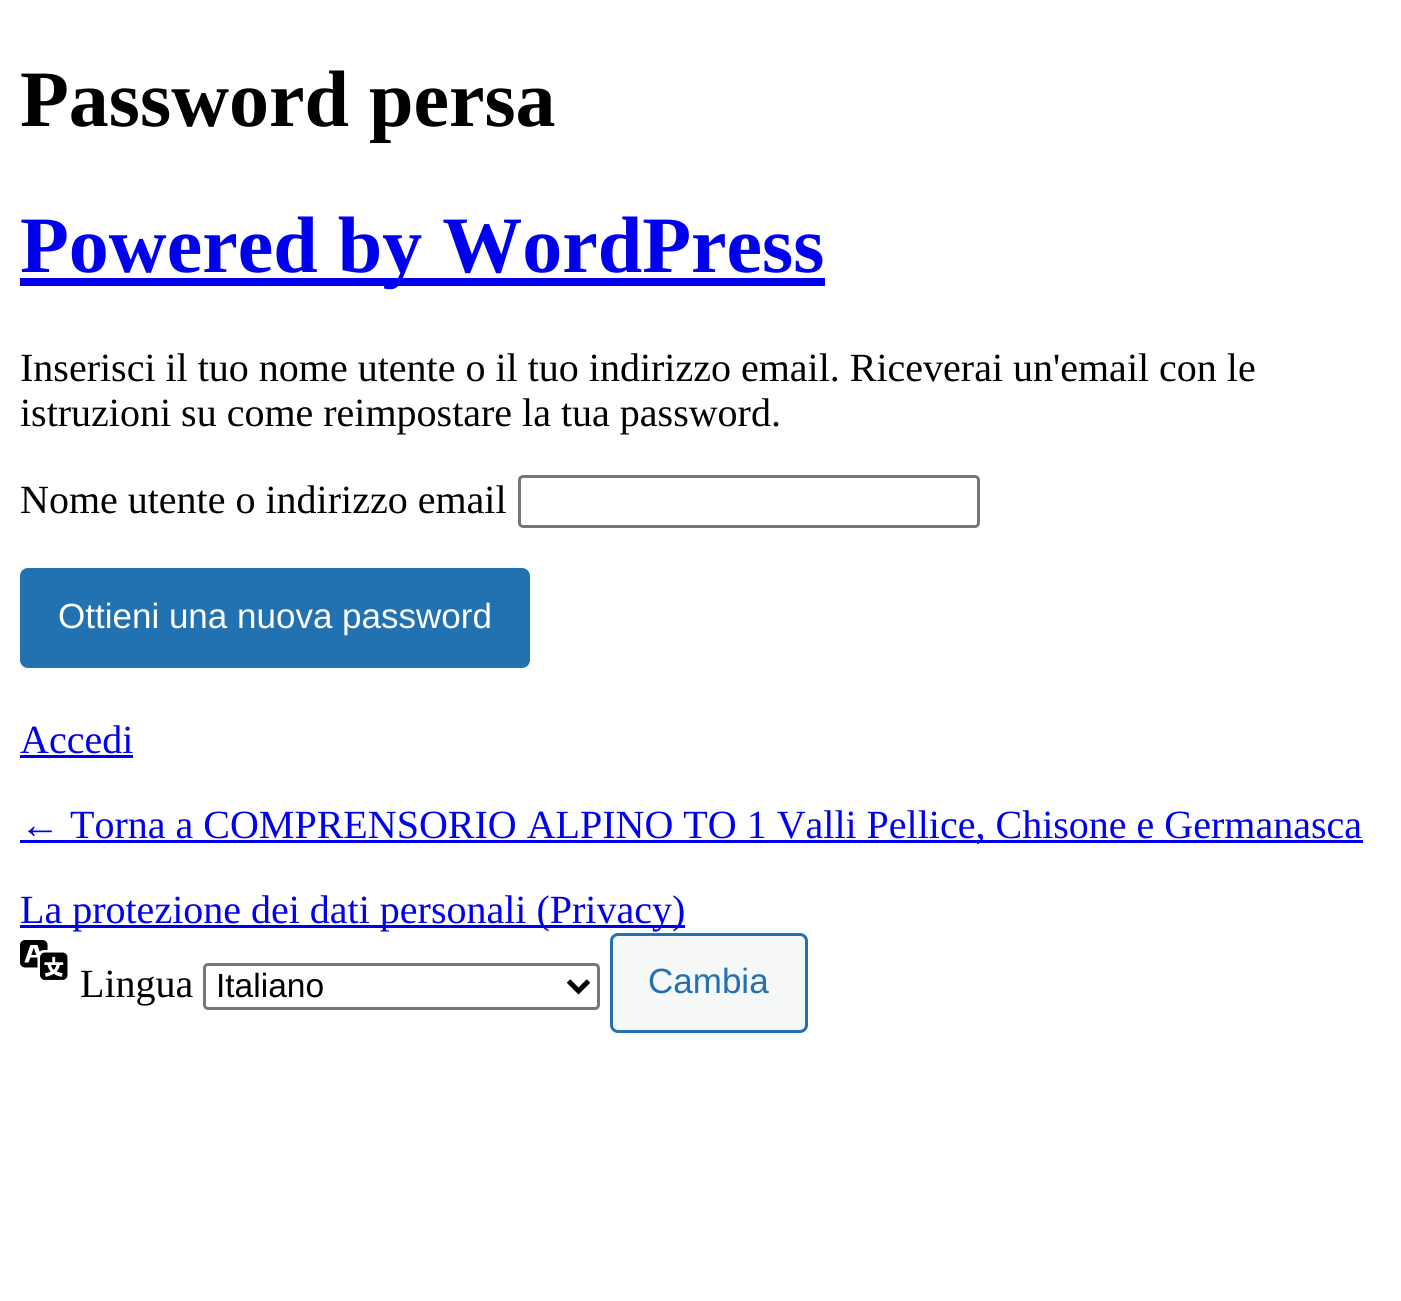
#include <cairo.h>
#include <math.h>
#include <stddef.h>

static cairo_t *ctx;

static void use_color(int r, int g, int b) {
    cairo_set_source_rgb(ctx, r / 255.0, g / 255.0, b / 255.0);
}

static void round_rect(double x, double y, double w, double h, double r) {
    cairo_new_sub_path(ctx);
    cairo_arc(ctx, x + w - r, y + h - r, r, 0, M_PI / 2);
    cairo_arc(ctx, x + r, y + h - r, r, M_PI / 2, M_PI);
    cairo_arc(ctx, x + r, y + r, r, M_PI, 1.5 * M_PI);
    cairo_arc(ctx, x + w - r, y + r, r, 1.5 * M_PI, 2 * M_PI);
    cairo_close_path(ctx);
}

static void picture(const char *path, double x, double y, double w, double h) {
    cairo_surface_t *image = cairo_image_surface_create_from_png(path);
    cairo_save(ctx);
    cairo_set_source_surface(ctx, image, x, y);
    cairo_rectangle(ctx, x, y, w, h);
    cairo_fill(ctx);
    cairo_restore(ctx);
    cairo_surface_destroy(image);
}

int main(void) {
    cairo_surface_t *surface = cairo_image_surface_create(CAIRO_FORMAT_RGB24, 1401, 1301);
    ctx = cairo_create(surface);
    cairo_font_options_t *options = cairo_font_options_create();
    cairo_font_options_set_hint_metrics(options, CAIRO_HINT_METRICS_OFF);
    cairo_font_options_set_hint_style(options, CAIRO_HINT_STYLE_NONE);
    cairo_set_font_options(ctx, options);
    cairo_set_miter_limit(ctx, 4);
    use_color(255, 255, 255);
    cairo_paint(ctx);
    cairo_select_font_face(ctx, "Liberation Serif", CAIRO_FONT_SLANT_NORMAL, CAIRO_FONT_WEIGHT_BOLD);
    cairo_set_font_size(ctx, 80);
    use_color(0, 0, 0);
    cairo_move_to(ctx, 20, 126);
    cairo_show_text(ctx, "Password persa");
    use_color(0, 0, 238);
    cairo_rectangle(ctx, 20, 278, 805, 8);
    cairo_fill(ctx);
    cairo_move_to(ctx, 20, 272);
    cairo_show_text(ctx, "Powered by WordPress");
    cairo_select_font_face(ctx, "Liberation Serif", CAIRO_FONT_SLANT_NORMAL, CAIRO_FONT_WEIGHT_NORMAL);
    cairo_set_font_size(ctx, 40);
    use_color(0, 0, 0);
    cairo_move_to(ctx, 20, 381);
    cairo_show_text(ctx, "Inserisci il tuo nome utente o il tuo indirizzo email. Riceverai un'email con le");
    cairo_move_to(ctx, 20, 426);
    cairo_show_text(ctx, "istruzioni su come reimpostare la tua password.");
    cairo_move_to(ctx, 20, 513);
    cairo_show_text(ctx, "Nome utente o indirizzo email");
    round_rect(519.5, 476.5, 459, 50, 3.5);
    use_color(118, 118, 118);
    cairo_set_line_width(ctx, 3);
    cairo_stroke(ctx);
    use_color(34, 113, 177);
    round_rect(21.5, 569.5, 507, 97, 6.5);
    cairo_fill_preserve(ctx);
    cairo_stroke(ctx);
    cairo_select_font_face(ctx, "Liberation Sans", CAIRO_FONT_SLANT_NORMAL, CAIRO_FONT_WEIGHT_NORMAL);
    cairo_set_font_size(ctx, 35);
    use_color(255, 255, 255);
    cairo_move_to(ctx, 58, 628);
    cairo_show_text(ctx, "Ottieni una nuova password");
    cairo_select_font_face(ctx, "Liberation Serif", CAIRO_FONT_SLANT_NORMAL, CAIRO_FONT_WEIGHT_NORMAL);
    cairo_set_font_size(ctx, 40);
    use_color(0, 0, 238);
    cairo_move_to(ctx, 20, 753);
    cairo_show_text(ctx, "Accedi");
    cairo_rectangle(ctx, 20, 755, 113, 3);
    cairo_fill(ctx);
    cairo_rectangle(ctx, 20, 840, 1343, 3);
    cairo_fill(ctx);
    cairo_move_to(ctx, 20, 838);
    cairo_show_text(ctx, "← Torna a COMPRENSORIO ALPINO TO 1 Valli Pellice, Chisone e Germanasca");
    cairo_rectangle(ctx, 20, 925, 665, 3);
    cairo_fill(ctx);
    cairo_move_to(ctx, 20, 923);
    cairo_show_text(ctx, "La protezione dei dati personali (Privacy)");
    picture("img1.png", 20, 940, 48, 40);
    use_color(0, 0, 0);
    cairo_move_to(ctx, 80, 997);
    cairo_show_text(ctx, "Lingua");
    round_rect(204.5, 964.5, 394, 44, 3.5);
    use_color(118, 118, 118);
    cairo_stroke(ctx);
    cairo_new_path(ctx);
    cairo_move_to(ctx, 568.5, 981);
    cairo_line_to(ctx, 578.5, 991);
    cairo_line_to(ctx, 588.5, 981);
    use_color(0, 0, 0);
    cairo_set_line_width(ctx, 5);
    cairo_stroke(ctx);
    cairo_select_font_face(ctx, "Liberation Sans", CAIRO_FONT_SLANT_NORMAL, CAIRO_FONT_WEIGHT_NORMAL);
    cairo_set_font_size(ctx, 33.5);
    cairo_move_to(ctx, 216, 997);
    cairo_show_text(ctx, "Italiano");
    use_color(246, 247, 247);
    round_rect(611.5, 934.5, 195, 97, 6.5);
    cairo_fill_preserve(ctx);
    use_color(34, 113, 177);
    cairo_set_line_width(ctx, 3);
    cairo_stroke(ctx);
    cairo_set_font_size(ctx, 35);
    cairo_move_to(ctx, 648, 993);
    cairo_show_text(ctx, "Cambia");
    cairo_surface_write_to_png(surface, "result.png");
    cairo_font_options_destroy(options);
    cairo_destroy(ctx);
    cairo_surface_destroy(surface);
    return 0;
}
